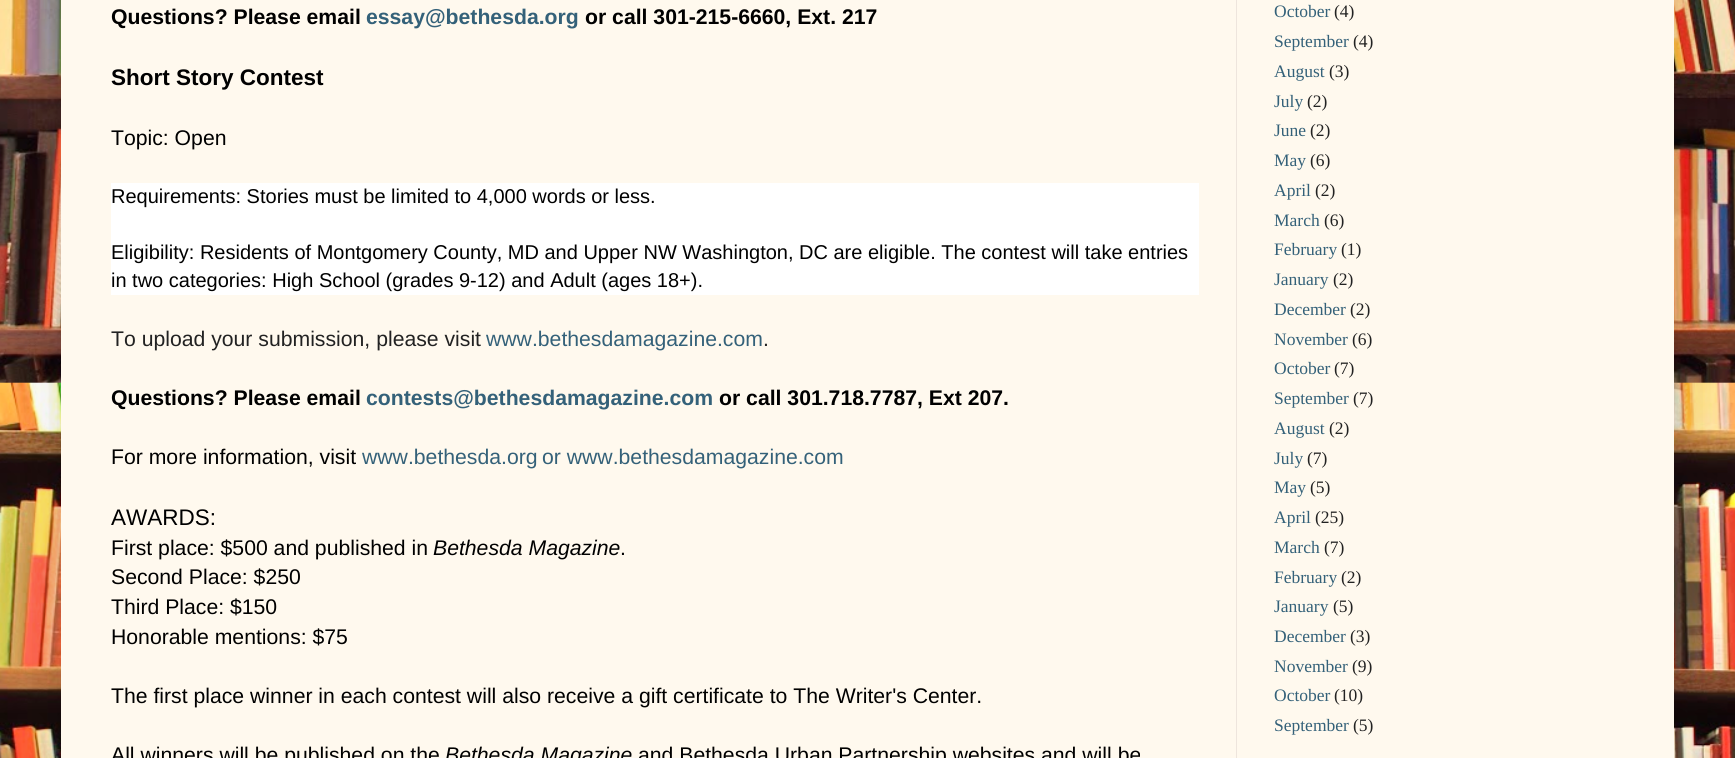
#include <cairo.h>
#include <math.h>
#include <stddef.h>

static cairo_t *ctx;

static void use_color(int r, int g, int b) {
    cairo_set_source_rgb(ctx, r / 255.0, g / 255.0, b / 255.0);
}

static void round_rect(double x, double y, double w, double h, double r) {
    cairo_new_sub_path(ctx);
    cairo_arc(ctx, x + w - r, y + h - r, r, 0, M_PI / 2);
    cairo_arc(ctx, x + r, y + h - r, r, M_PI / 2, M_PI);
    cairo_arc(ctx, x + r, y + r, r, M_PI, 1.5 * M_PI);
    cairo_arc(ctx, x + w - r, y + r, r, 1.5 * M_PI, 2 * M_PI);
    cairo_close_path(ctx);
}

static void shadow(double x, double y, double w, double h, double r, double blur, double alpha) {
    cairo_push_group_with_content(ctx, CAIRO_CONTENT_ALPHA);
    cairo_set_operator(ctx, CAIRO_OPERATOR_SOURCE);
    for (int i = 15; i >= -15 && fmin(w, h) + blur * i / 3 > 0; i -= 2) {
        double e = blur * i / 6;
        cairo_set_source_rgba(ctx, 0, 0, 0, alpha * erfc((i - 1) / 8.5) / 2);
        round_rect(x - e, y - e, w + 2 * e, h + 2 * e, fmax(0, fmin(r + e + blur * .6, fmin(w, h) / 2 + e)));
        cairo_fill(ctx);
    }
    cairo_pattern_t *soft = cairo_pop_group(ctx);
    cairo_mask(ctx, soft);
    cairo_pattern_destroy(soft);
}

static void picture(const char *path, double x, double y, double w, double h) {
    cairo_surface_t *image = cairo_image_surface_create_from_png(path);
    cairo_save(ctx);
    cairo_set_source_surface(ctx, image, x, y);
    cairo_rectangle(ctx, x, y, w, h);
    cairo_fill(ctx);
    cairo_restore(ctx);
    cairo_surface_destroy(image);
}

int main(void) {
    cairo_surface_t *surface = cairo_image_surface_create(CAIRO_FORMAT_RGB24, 1735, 758);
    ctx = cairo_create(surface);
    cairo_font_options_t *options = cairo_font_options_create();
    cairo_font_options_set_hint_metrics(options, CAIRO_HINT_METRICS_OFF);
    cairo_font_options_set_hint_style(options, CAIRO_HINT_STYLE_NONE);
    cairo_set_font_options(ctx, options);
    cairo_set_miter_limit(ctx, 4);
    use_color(255, 255, 255);
    cairo_paint(ctx);
    picture("img1.png", 0, 0, 1735, 758);
    use_color(0, 0, 0);
    shadow(61, -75, 1613, 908, 0, 25, 0.15);
    use_color(255, 249, 238);
    cairo_rectangle(ctx, 61, 0, 1613, 758);
    cairo_fill(ctx);
    use_color(238, 229, 221);
    cairo_rectangle(ctx, 1236, 0, 1, 758);
    cairo_fill(ctx);
    cairo_select_font_face(ctx, "Liberation Sans", CAIRO_FONT_SLANT_NORMAL, CAIRO_FONT_WEIGHT_BOLD);
    cairo_set_font_size(ctx, 21.2);
    use_color(0, 0, 0);
    cairo_move_to(ctx, 111, 24);
    cairo_show_text(ctx, "Questions? Please email");
    use_color(52, 97, 121);
    cairo_move_to(ctx, 366, 24);
    cairo_show_text(ctx, "essay@bethesda.org");
    use_color(0, 0, 0);
    cairo_move_to(ctx, 585, 24);
    cairo_show_text(ctx, "or call 301-215-6660, Ext. 217");
    cairo_set_font_size(ctx, 22.5);
    cairo_move_to(ctx, 111, 85);
    cairo_show_text(ctx, "Short Story Contest");
    cairo_select_font_face(ctx, "Liberation Sans", CAIRO_FONT_SLANT_NORMAL, CAIRO_FONT_WEIGHT_NORMAL);
    cairo_set_font_size(ctx, 21.2);
    cairo_move_to(ctx, 111, 145);
    cairo_show_text(ctx, "Topic: Open");
    use_color(255, 255, 255);
    cairo_rectangle(ctx, 111, 183, 1088, 112);
    cairo_fill(ctx);
    cairo_set_font_size(ctx, 20);
    use_color(0, 0, 0);
    cairo_move_to(ctx, 111, 203);
    cairo_show_text(ctx, "Requirements: Stories must be limited to 4,000 words or less.");
    cairo_move_to(ctx, 111, 259);
    cairo_show_text(ctx, "Eligibility: Residents of Montgomery County, MD and Upper NW Washington, DC are eligible. The contest will take entries");
    cairo_move_to(ctx, 111, 287);
    cairo_show_text(ctx, "in two categories: High School (grades 9-12) and Adult (ages 18+).");
    cairo_set_font_size(ctx, 21.2);
    use_color(34, 34, 34);
    cairo_move_to(ctx, 111, 346);
    cairo_show_text(ctx, "To upload your submission, please visit");
    use_color(52, 97, 121);
    cairo_move_to(ctx, 486, 346);
    cairo_show_text(ctx, "www.bethesdamagazine.com");
    use_color(34, 34, 34);
    cairo_move_to(ctx, 763, 346);
    cairo_show_text(ctx, ".");
    cairo_select_font_face(ctx, "Liberation Sans", CAIRO_FONT_SLANT_NORMAL, CAIRO_FONT_WEIGHT_BOLD);
    use_color(0, 0, 0);
    cairo_move_to(ctx, 111, 405);
    cairo_show_text(ctx, "Questions? Please email");
    use_color(52, 97, 121);
    cairo_move_to(ctx, 366, 405);
    cairo_show_text(ctx, "contests@bethesdamagazine.com");
    use_color(0, 0, 0);
    cairo_move_to(ctx, 719, 405);
    cairo_show_text(ctx, "or call 301.718.7787, Ext 207.");
    cairo_select_font_face(ctx, "Liberation Sans", CAIRO_FONT_SLANT_NORMAL, CAIRO_FONT_WEIGHT_NORMAL);
    cairo_move_to(ctx, 111, 464);
    cairo_show_text(ctx, "For more information, visit");
    use_color(52, 97, 121);
    cairo_move_to(ctx, 362, 464);
    cairo_show_text(ctx, "www.bethesda.org");
    cairo_move_to(ctx, 542, 464);
    cairo_show_text(ctx, "or www.bethesdamagazine.com");
    cairo_set_font_size(ctx, 22.5);
    use_color(0, 0, 0);
    cairo_move_to(ctx, 111, 525);
    cairo_show_text(ctx, "AWARDS:");
    cairo_set_font_size(ctx, 21.2);
    cairo_move_to(ctx, 111, 555);
    cairo_show_text(ctx, "First place: $500 and published in");
    cairo_select_font_face(ctx, "Liberation Sans", CAIRO_FONT_SLANT_ITALIC, CAIRO_FONT_WEIGHT_NORMAL);
    cairo_move_to(ctx, 433, 555);
    cairo_show_text(ctx, "Bethesda Magazine");
    cairo_select_font_face(ctx, "Liberation Sans", CAIRO_FONT_SLANT_NORMAL, CAIRO_FONT_WEIGHT_NORMAL);
    cairo_move_to(ctx, 620, 555);
    cairo_show_text(ctx, ".");
    cairo_move_to(ctx, 111, 584);
    cairo_show_text(ctx, "Second Place: $250");
    cairo_move_to(ctx, 111, 614);
    cairo_show_text(ctx, "Third Place: $150");
    cairo_move_to(ctx, 111, 644);
    cairo_show_text(ctx, "Honorable mentions: $75");
    cairo_move_to(ctx, 111, 703);
    cairo_show_text(ctx, "The first place winner in each contest will also receive a gift certificate to The Writer's Center.");
    cairo_move_to(ctx, 111, 762);
    cairo_show_text(ctx, "All winners will be published on the");
    cairo_select_font_face(ctx, "Liberation Sans", CAIRO_FONT_SLANT_ITALIC, CAIRO_FONT_WEIGHT_NORMAL);
    cairo_move_to(ctx, 445, 762);
    cairo_show_text(ctx, "Bethesda Magazine");
    cairo_select_font_face(ctx, "Liberation Sans", CAIRO_FONT_SLANT_NORMAL, CAIRO_FONT_WEIGHT_NORMAL);
    cairo_move_to(ctx, 638, 762);
    cairo_show_text(ctx, "and Bethesda Urban Partnership websites and will be");
    cairo_select_font_face(ctx, "Liberation Serif", CAIRO_FONT_SLANT_NORMAL, CAIRO_FONT_WEIGHT_NORMAL);
    cairo_set_font_size(ctx, 17.5);
    use_color(52, 97, 121);
    cairo_move_to(ctx, 1274, 17);
    cairo_show_text(ctx, "October");
    use_color(34, 34, 34);
    cairo_move_to(ctx, 1334, 17);
    cairo_show_text(ctx, "(4)");
    use_color(52, 97, 121);
    cairo_move_to(ctx, 1274, 47);
    cairo_show_text(ctx, "September");
    use_color(34, 34, 34);
    cairo_move_to(ctx, 1353, 47);
    cairo_show_text(ctx, "(4)");
    use_color(52, 97, 121);
    cairo_move_to(ctx, 1274, 77);
    cairo_show_text(ctx, "August");
    use_color(34, 34, 34);
    cairo_move_to(ctx, 1329, 77);
    cairo_show_text(ctx, "(3)");
    use_color(52, 97, 121);
    cairo_move_to(ctx, 1274, 107);
    cairo_show_text(ctx, "July");
    use_color(34, 34, 34);
    cairo_move_to(ctx, 1307, 107);
    cairo_show_text(ctx, "(2)");
    use_color(52, 97, 121);
    cairo_move_to(ctx, 1274, 136);
    cairo_show_text(ctx, "June");
    use_color(34, 34, 34);
    cairo_move_to(ctx, 1310, 136);
    cairo_show_text(ctx, "(2)");
    use_color(52, 97, 121);
    cairo_move_to(ctx, 1274, 166);
    cairo_show_text(ctx, "May");
    use_color(34, 34, 34);
    cairo_move_to(ctx, 1310, 166);
    cairo_show_text(ctx, "(6)");
    use_color(52, 97, 121);
    cairo_move_to(ctx, 1274, 196);
    cairo_show_text(ctx, "April");
    use_color(34, 34, 34);
    cairo_move_to(ctx, 1315, 196);
    cairo_show_text(ctx, "(2)");
    use_color(52, 97, 121);
    cairo_move_to(ctx, 1274, 226);
    cairo_show_text(ctx, "March");
    use_color(34, 34, 34);
    cairo_move_to(ctx, 1324, 226);
    cairo_show_text(ctx, "(6)");
    use_color(52, 97, 121);
    cairo_move_to(ctx, 1274, 255);
    cairo_show_text(ctx, "February");
    use_color(34, 34, 34);
    cairo_move_to(ctx, 1341, 255);
    cairo_show_text(ctx, "(1)");
    use_color(52, 97, 121);
    cairo_move_to(ctx, 1274, 285);
    cairo_show_text(ctx, "January");
    use_color(34, 34, 34);
    cairo_move_to(ctx, 1333, 285);
    cairo_show_text(ctx, "(2)");
    use_color(52, 97, 121);
    cairo_move_to(ctx, 1274, 315);
    cairo_show_text(ctx, "December");
    use_color(34, 34, 34);
    cairo_move_to(ctx, 1350, 315);
    cairo_show_text(ctx, "(2)");
    use_color(52, 97, 121);
    cairo_move_to(ctx, 1274, 345);
    cairo_show_text(ctx, "November");
    use_color(34, 34, 34);
    cairo_move_to(ctx, 1352, 345);
    cairo_show_text(ctx, "(6)");
    use_color(52, 97, 121);
    cairo_move_to(ctx, 1274, 374);
    cairo_show_text(ctx, "October");
    use_color(34, 34, 34);
    cairo_move_to(ctx, 1334, 374);
    cairo_show_text(ctx, "(7)");
    use_color(52, 97, 121);
    cairo_move_to(ctx, 1274, 404);
    cairo_show_text(ctx, "September");
    use_color(34, 34, 34);
    cairo_move_to(ctx, 1353, 404);
    cairo_show_text(ctx, "(7)");
    use_color(52, 97, 121);
    cairo_move_to(ctx, 1274, 434);
    cairo_show_text(ctx, "August");
    use_color(34, 34, 34);
    cairo_move_to(ctx, 1329, 434);
    cairo_show_text(ctx, "(2)");
    use_color(52, 97, 121);
    cairo_move_to(ctx, 1274, 464);
    cairo_show_text(ctx, "July");
    use_color(34, 34, 34);
    cairo_move_to(ctx, 1307, 464);
    cairo_show_text(ctx, "(7)");
    use_color(52, 97, 121);
    cairo_move_to(ctx, 1274, 493);
    cairo_show_text(ctx, "May");
    use_color(34, 34, 34);
    cairo_move_to(ctx, 1310, 493);
    cairo_show_text(ctx, "(5)");
    use_color(52, 97, 121);
    cairo_move_to(ctx, 1274, 523);
    cairo_show_text(ctx, "April");
    use_color(34, 34, 34);
    cairo_move_to(ctx, 1315, 523);
    cairo_show_text(ctx, "(25)");
    use_color(52, 97, 121);
    cairo_move_to(ctx, 1274, 553);
    cairo_show_text(ctx, "March");
    use_color(34, 34, 34);
    cairo_move_to(ctx, 1324, 553);
    cairo_show_text(ctx, "(7)");
    use_color(52, 97, 121);
    cairo_move_to(ctx, 1274, 583);
    cairo_show_text(ctx, "February");
    use_color(34, 34, 34);
    cairo_move_to(ctx, 1341, 583);
    cairo_show_text(ctx, "(2)");
    use_color(52, 97, 121);
    cairo_move_to(ctx, 1274, 612);
    cairo_show_text(ctx, "January");
    use_color(34, 34, 34);
    cairo_move_to(ctx, 1333, 612);
    cairo_show_text(ctx, "(5)");
    use_color(52, 97, 121);
    cairo_move_to(ctx, 1274, 642);
    cairo_show_text(ctx, "December");
    use_color(34, 34, 34);
    cairo_move_to(ctx, 1350, 642);
    cairo_show_text(ctx, "(3)");
    use_color(52, 97, 121);
    cairo_move_to(ctx, 1274, 672);
    cairo_show_text(ctx, "November");
    use_color(34, 34, 34);
    cairo_move_to(ctx, 1352, 672);
    cairo_show_text(ctx, "(9)");
    use_color(52, 97, 121);
    cairo_move_to(ctx, 1274, 701);
    cairo_show_text(ctx, "October");
    use_color(34, 34, 34);
    cairo_move_to(ctx, 1334, 701);
    cairo_show_text(ctx, "(10)");
    use_color(52, 97, 121);
    cairo_move_to(ctx, 1274, 731);
    cairo_show_text(ctx, "September");
    use_color(34, 34, 34);
    cairo_move_to(ctx, 1353, 731);
    cairo_show_text(ctx, "(5)");
    cairo_surface_write_to_png(surface, "result.png");
    cairo_font_options_destroy(options);
    cairo_destroy(ctx);
    cairo_surface_destroy(surface);
    return 0;
}
